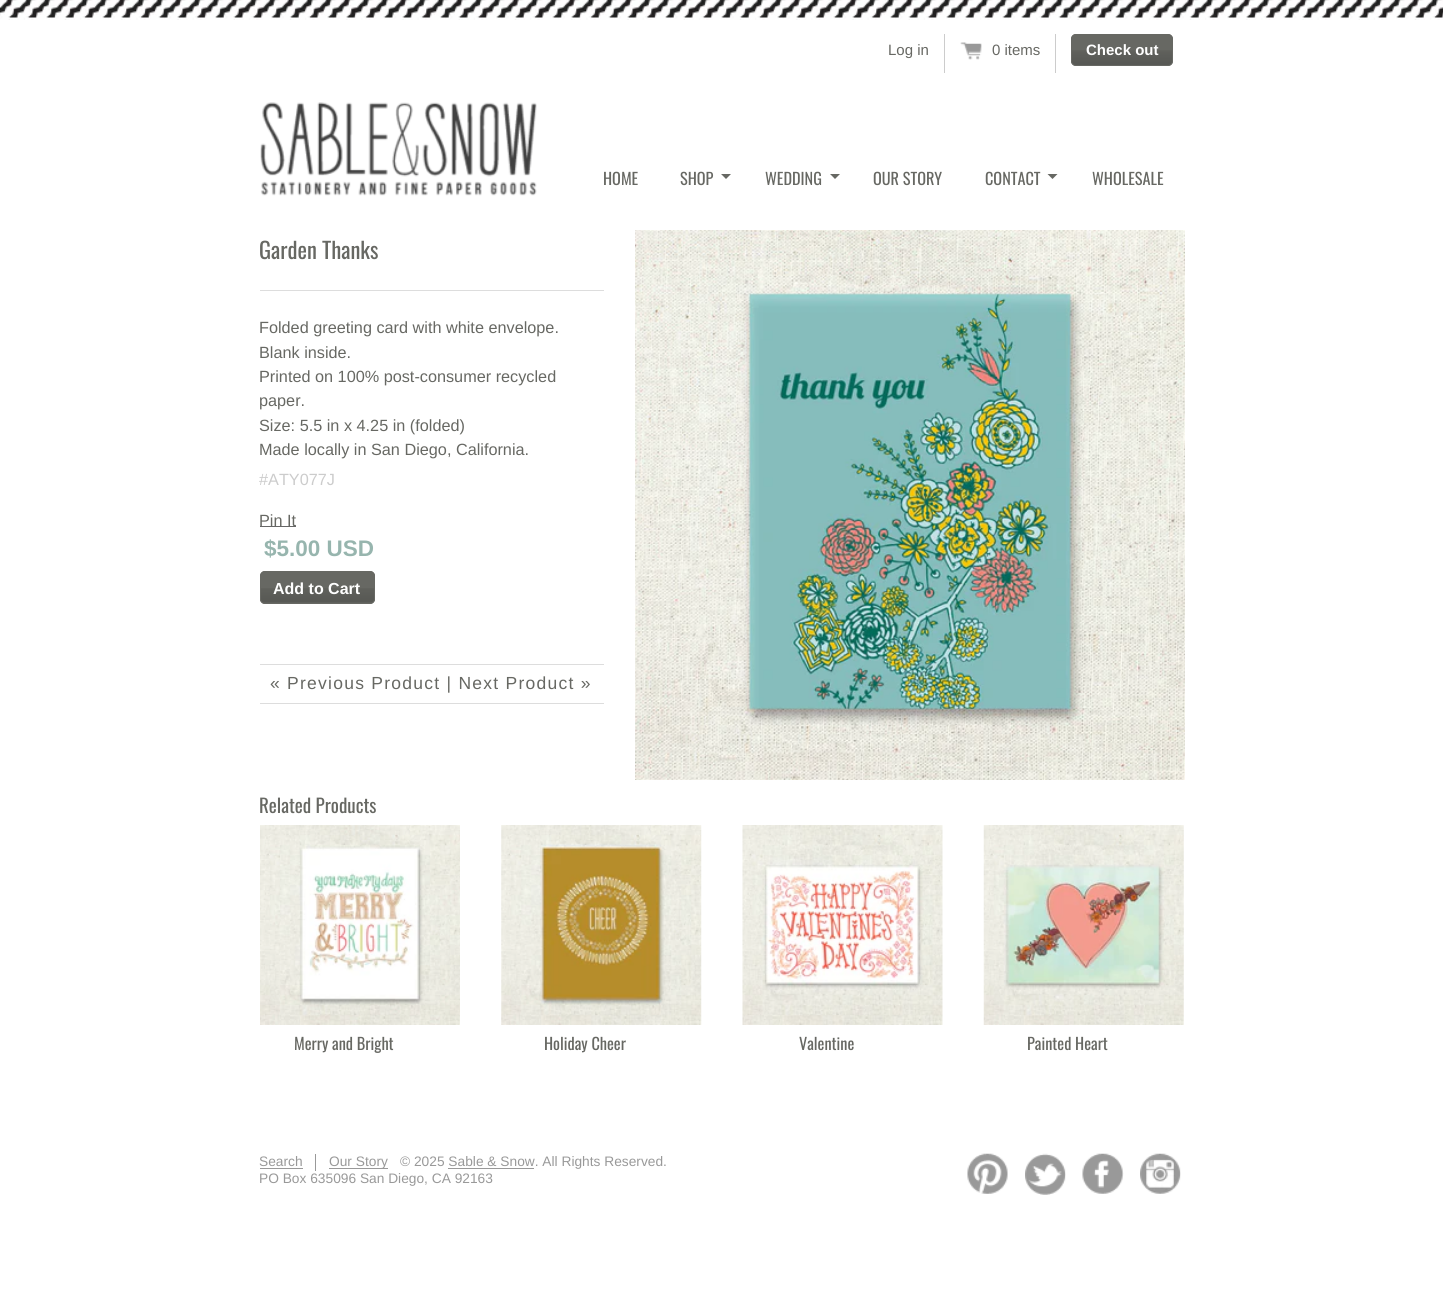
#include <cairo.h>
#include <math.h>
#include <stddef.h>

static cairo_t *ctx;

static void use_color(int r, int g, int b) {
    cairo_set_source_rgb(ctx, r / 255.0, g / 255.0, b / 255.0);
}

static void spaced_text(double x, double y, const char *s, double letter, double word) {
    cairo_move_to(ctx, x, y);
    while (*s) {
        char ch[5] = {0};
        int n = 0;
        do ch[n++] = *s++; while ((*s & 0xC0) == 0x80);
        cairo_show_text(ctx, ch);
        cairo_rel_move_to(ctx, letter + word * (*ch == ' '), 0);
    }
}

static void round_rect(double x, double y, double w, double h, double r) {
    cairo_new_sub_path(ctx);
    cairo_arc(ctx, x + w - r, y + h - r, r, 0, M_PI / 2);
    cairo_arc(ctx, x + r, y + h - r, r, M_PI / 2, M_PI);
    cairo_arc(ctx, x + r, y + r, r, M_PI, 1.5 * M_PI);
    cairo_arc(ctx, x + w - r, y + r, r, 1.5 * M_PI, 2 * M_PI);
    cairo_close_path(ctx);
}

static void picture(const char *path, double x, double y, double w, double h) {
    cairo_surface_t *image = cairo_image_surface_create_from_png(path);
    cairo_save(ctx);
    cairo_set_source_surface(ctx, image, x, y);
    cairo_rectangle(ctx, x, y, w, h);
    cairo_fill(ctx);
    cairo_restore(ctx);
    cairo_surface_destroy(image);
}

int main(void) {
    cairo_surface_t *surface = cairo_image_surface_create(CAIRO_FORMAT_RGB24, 1443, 1308);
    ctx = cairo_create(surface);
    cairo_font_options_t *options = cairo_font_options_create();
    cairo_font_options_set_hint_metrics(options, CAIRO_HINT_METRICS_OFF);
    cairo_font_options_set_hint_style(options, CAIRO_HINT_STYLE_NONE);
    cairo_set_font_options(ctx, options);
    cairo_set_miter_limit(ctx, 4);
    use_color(255, 255, 255);
    cairo_paint(ctx);
    picture("img1.png", 0, 0, 1443, 20);
    use_color(204, 204, 204);
    cairo_rectangle(ctx, 944, 34, 1, 39);
    cairo_fill(ctx);
    cairo_select_font_face(ctx, "Liberation Sans", CAIRO_FONT_SLANT_NORMAL, CAIRO_FONT_WEIGHT_NORMAL);
    cairo_set_font_size(ctx, 15);
    use_color(103, 104, 99);
    cairo_move_to(ctx, 888, 55);
    cairo_show_text(ctx, "Log in");
    use_color(204, 204, 204);
    cairo_rectangle(ctx, 1055, 34, 1, 39);
    cairo_fill(ctx);
    picture("img2.png", 960, 42, 22, 18);
    use_color(103, 104, 99);
    cairo_move_to(ctx, 992, 55);
    cairo_show_text(ctx, "0 items");
    round_rect(1071, 34, 102, 32, 5);
    cairo_fill(ctx);
    picture("img3.png", 1071, 50, 101, 15);
    round_rect(1071.5, 34.5, 101, 31, 4.5);
    cairo_set_line_width(ctx, 1);
    cairo_stroke(ctx);
    cairo_select_font_face(ctx, "Liberation Sans", CAIRO_FONT_SLANT_NORMAL, CAIRO_FONT_WEIGHT_BOLD);
    use_color(255, 255, 255);
    cairo_move_to(ctx, 1086, 55);
    cairo_show_text(ctx, "Check out");
    picture("img4.png", 260, 102, 277, 94);
    cairo_select_font_face(ctx, "Oswald", CAIRO_FONT_SLANT_NORMAL, CAIRO_FONT_WEIGHT_NORMAL);
    cairo_set_font_size(ctx, 16.25);
    use_color(103, 104, 99);
    cairo_move_to(ctx, 603, 185);
    cairo_show_text(ctx, "HOME");
    cairo_move_to(ctx, 680, 185);
    cairo_show_text(ctx, "SHOP");
    cairo_new_path(ctx);
    cairo_move_to(ctx, 721, 174);
    cairo_line_to(ctx, 731, 174);
    cairo_line_to(ctx, 726, 179);
    cairo_close_path(ctx);
    cairo_fill(ctx);
    cairo_move_to(ctx, 765, 185);
    cairo_show_text(ctx, "WEDDING");
    cairo_new_path(ctx);
    cairo_move_to(ctx, 830, 174);
    cairo_line_to(ctx, 840, 174);
    cairo_line_to(ctx, 835, 179);
    cairo_close_path(ctx);
    cairo_fill(ctx);
    cairo_move_to(ctx, 873, 185);
    cairo_show_text(ctx, "OUR STORY");
    cairo_move_to(ctx, 985, 185);
    cairo_show_text(ctx, "CONTACT");
    cairo_new_path(ctx);
    cairo_move_to(ctx, 1047.5, 174);
    cairo_line_to(ctx, 1057.5, 174);
    cairo_line_to(ctx, 1052.5, 179);
    cairo_close_path(ctx);
    cairo_fill(ctx);
    cairo_move_to(ctx, 1092, 185);
    cairo_show_text(ctx, "WHOLESALE");
    use_color(221, 221, 221);
    cairo_rectangle(ctx, 260, 290, 344, 1);
    cairo_fill(ctx);
    cairo_set_font_size(ctx, 22.5);
    use_color(103, 104, 99);
    cairo_move_to(ctx, 259, 259);
    cairo_show_text(ctx, "Garden Thanks");
    cairo_select_font_face(ctx, "Liberation Sans", CAIRO_FONT_SLANT_NORMAL, CAIRO_FONT_WEIGHT_NORMAL);
    cairo_set_font_size(ctx, 16.25);
    cairo_move_to(ctx, 259, 333);
    cairo_show_text(ctx, "Folded greeting card with white envelope.");
    cairo_move_to(ctx, 259, 358);
    cairo_show_text(ctx, "Blank inside.");
    cairo_move_to(ctx, 259, 382);
    cairo_show_text(ctx, "Printed on 100% post-consumer recycled");
    cairo_move_to(ctx, 259, 406);
    cairo_show_text(ctx, "paper.");
    cairo_move_to(ctx, 259, 431);
    cairo_show_text(ctx, "Size: 5.5 in x 4.25 in (folded)");
    cairo_move_to(ctx, 259, 455);
    cairo_show_text(ctx, "Made locally in San Diego, California.");
    use_color(204, 204, 204);
    cairo_move_to(ctx, 259, 485);
    cairo_show_text(ctx, "#ATY077J");
    use_color(102, 102, 102);
    cairo_rectangle(ctx, 260, 526, 36, 1);
    cairo_fill(ctx);
    use_color(103, 104, 99);
    cairo_move_to(ctx, 259, 526);
    cairo_show_text(ctx, "Pin It");
    cairo_select_font_face(ctx, "Liberation Sans", CAIRO_FONT_SLANT_NORMAL, CAIRO_FONT_WEIGHT_BOLD);
    cairo_set_font_size(ctx, 22.5);
    use_color(151, 181, 174);
    cairo_move_to(ctx, 264, 556);
    cairo_show_text(ctx, "$5.00 USD");
    use_color(103, 104, 99);
    round_rect(260, 571, 115, 33, 5);
    cairo_fill(ctx);
    picture("img5.png", 260, 588, 115, 15);
    round_rect(260.5, 571.5, 114, 32, 4.5);
    cairo_stroke(ctx);
    cairo_set_font_size(ctx, 16);
    use_color(255, 255, 255);
    cairo_move_to(ctx, 273, 594);
    cairo_show_text(ctx, "Add to Cart");
    use_color(221, 221, 221);
    cairo_rectangle(ctx, 260, 664, 344, 1);
    cairo_fill(ctx);
    cairo_rectangle(ctx, 260, 703, 344, 1);
    cairo_fill(ctx);
    cairo_select_font_face(ctx, "Liberation Sans", CAIRO_FONT_SLANT_NORMAL, CAIRO_FONT_WEIGHT_NORMAL);
    cairo_set_font_size(ctx, 17.5);
    use_color(103, 104, 99);
    spaced_text(270, 689, "« Previous Product | Next Product »", 1.25, 0);
    picture("img6.png", 635, 230, 550, 550);
    cairo_select_font_face(ctx, "Oswald", CAIRO_FONT_SLANT_NORMAL, CAIRO_FONT_WEIGHT_NORMAL);
    cairo_set_font_size(ctx, 19);
    cairo_move_to(ctx, 259, 813);
    cairo_show_text(ctx, "Related Products");
    picture("img7.png", 260, 825, 200, 200);
    cairo_set_font_size(ctx, 16.25);
    cairo_move_to(ctx, 294, 1050);
    cairo_show_text(ctx, "Merry and Bright");
    picture("img8.png", 501, 825, 201, 200);
    cairo_move_to(ctx, 544, 1050);
    cairo_show_text(ctx, "Holiday Cheer");
    picture("img9.png", 742, 825, 201, 200);
    cairo_move_to(ctx, 799, 1050);
    cairo_show_text(ctx, "Valentine");
    picture("img10.png", 983, 825, 201, 200);
    cairo_move_to(ctx, 1027, 1050);
    cairo_show_text(ctx, "Painted Heart");
    cairo_select_font_face(ctx, "Liberation Sans", CAIRO_FONT_SLANT_NORMAL, CAIRO_FONT_WEIGHT_NORMAL);
    cairo_set_font_size(ctx, 13.75);
    use_color(153, 153, 153);
    cairo_move_to(ctx, 259, 1166);
    cairo_show_text(ctx, "Search");
    cairo_rectangle(ctx, 260, 1168, 43, 1);
    cairo_fill(ctx);
    cairo_rectangle(ctx, 315, 1154, 1, 17);
    cairo_fill(ctx);
    cairo_rectangle(ctx, 329, 1168, 59, 1);
    cairo_fill(ctx);
    cairo_move_to(ctx, 329, 1166);
    cairo_show_text(ctx, "Our Story");
    cairo_move_to(ctx, 400, 1166);
    cairo_show_text(ctx, "© 2025 Sable & Snow. All Rights Reserved.");
    cairo_rectangle(ctx, 448, 1168, 86, 1);
    cairo_fill(ctx);
    cairo_move_to(ctx, 259, 1183);
    cairo_show_text(ctx, "PO Box 635096 San Diego, CA 92163");
    picture("img11.png", 967, 1153, 41, 41);
    picture("img12.png", 1025, 1153, 41, 42);
    picture("img13.png", 1082, 1153, 42, 41);
    picture("img14.png", 1140, 1153, 41, 41);
    cairo_surface_write_to_png(surface, "result.png");
    cairo_font_options_destroy(options);
    cairo_destroy(ctx);
    cairo_surface_destroy(surface);
    return 0;
}
